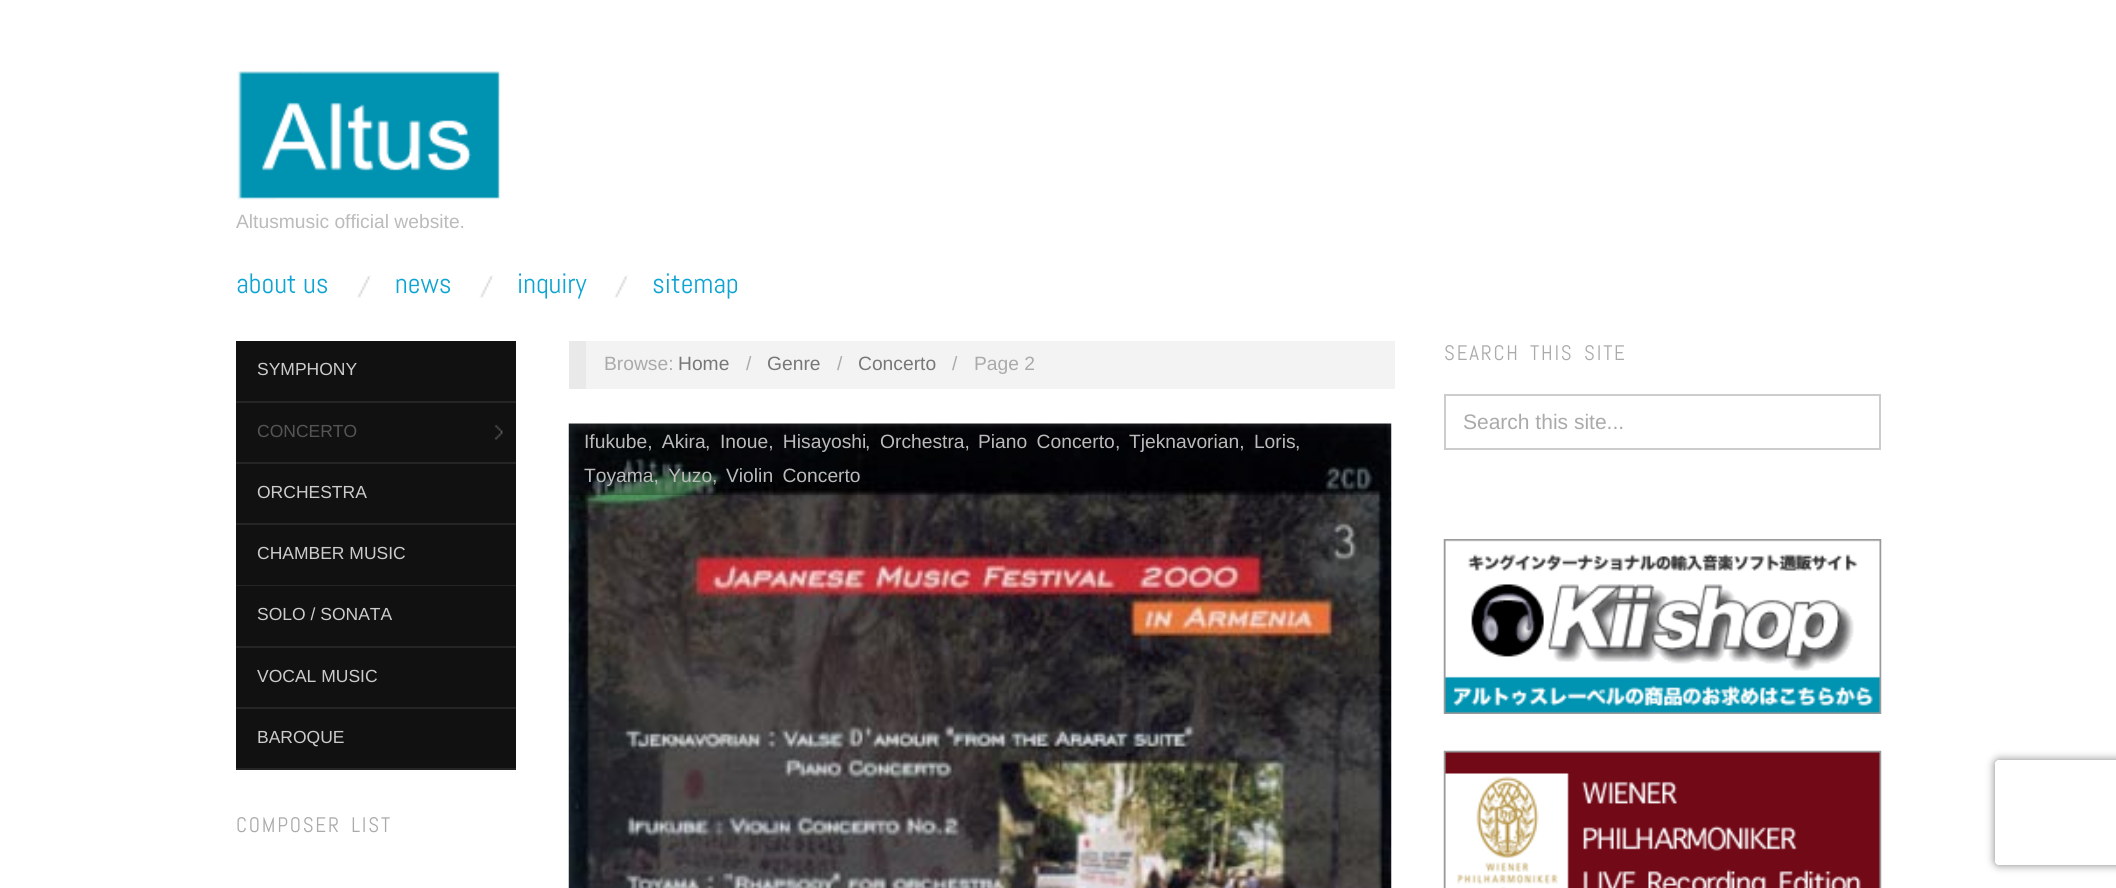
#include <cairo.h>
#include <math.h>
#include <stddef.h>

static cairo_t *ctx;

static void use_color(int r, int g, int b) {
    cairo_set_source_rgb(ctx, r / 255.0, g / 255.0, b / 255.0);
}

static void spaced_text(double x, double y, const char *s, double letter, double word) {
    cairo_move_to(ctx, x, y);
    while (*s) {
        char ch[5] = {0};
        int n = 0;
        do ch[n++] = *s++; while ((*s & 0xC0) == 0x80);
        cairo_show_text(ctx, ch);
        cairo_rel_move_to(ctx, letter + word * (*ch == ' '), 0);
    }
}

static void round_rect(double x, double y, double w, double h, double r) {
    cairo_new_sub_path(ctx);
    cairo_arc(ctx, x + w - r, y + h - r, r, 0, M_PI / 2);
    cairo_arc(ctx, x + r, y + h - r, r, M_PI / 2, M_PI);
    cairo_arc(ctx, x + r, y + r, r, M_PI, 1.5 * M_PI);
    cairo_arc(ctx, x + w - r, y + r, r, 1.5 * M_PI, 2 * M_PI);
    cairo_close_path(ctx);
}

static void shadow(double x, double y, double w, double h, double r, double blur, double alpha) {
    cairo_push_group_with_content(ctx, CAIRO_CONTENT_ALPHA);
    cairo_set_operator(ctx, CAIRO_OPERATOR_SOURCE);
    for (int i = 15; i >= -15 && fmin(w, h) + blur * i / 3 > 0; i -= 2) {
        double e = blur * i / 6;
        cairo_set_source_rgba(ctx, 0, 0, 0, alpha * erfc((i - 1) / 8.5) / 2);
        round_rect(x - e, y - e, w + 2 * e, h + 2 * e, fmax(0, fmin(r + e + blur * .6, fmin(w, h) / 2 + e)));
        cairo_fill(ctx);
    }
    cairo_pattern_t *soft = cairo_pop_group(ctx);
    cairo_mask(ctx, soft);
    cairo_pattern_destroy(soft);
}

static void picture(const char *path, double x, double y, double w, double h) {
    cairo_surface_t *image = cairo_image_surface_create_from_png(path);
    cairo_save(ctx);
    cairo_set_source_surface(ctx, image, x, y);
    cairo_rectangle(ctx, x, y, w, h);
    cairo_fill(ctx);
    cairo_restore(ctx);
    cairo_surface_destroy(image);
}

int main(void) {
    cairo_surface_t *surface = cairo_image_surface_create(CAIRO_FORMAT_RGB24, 2116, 888);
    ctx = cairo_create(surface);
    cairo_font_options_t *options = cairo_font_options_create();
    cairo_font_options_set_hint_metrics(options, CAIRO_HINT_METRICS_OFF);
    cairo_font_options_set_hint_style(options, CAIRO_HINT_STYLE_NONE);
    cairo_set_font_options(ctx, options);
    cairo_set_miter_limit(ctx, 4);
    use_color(255, 255, 255);
    cairo_paint(ctx);
    picture("img1.png", 237, 71, 264, 129);
    cairo_select_font_face(ctx, "Liberation Sans", CAIRO_FONT_SLANT_NORMAL, CAIRO_FONT_WEIGHT_NORMAL);
    cairo_set_font_size(ctx, 19.25);
    use_color(187, 187, 187);
    cairo_move_to(ctx, 236, 228);
    cairo_show_text(ctx, "Altusmusic official website.");
    cairo_select_font_face(ctx, "Abel", CAIRO_FONT_SLANT_NORMAL, CAIRO_FONT_WEIGHT_NORMAL);
    cairo_set_font_size(ctx, 28);
    use_color(13, 164, 211);
    cairo_move_to(ctx, 236, 293);
    cairo_show_text(ctx, "about us");
    picture("img2.png", 357, 275, 14, 23);
    cairo_move_to(ctx, 395, 293);
    cairo_show_text(ctx, "news");
    picture("img3.png", 479, 275, 15, 23);
    cairo_move_to(ctx, 517, 293);
    cairo_show_text(ctx, "inquiry");
    picture("img4.png", 614, 275, 14, 23);
    cairo_move_to(ctx, 652, 293);
    cairo_show_text(ctx, "sitemap");
    use_color(17, 17, 17);
    cairo_rectangle(ctx, 236, 341, 280, 427);
    cairo_fill(ctx);
    use_color(37, 37, 37);
    cairo_rectangle(ctx, 236, 401, 280, 2);
    cairo_fill(ctx);
    cairo_select_font_face(ctx, "Liberation Sans", CAIRO_FONT_SLANT_NORMAL, CAIRO_FONT_WEIGHT_NORMAL);
    cairo_set_font_size(ctx, 17.5);
    use_color(204, 204, 204);
    cairo_move_to(ctx, 257, 375);
    cairo_show_text(ctx, "SYMPHONY");
    picture("img5.png", 494, 425, 9, 15);
    use_color(37, 37, 37);
    cairo_rectangle(ctx, 236, 462, 280, 2);
    cairo_fill(ctx);
    use_color(85, 85, 85);
    cairo_move_to(ctx, 257, 437);
    cairo_show_text(ctx, "CONCERTO");
    use_color(37, 37, 37);
    cairo_rectangle(ctx, 236, 523, 280, 2);
    cairo_fill(ctx);
    use_color(204, 204, 204);
    cairo_move_to(ctx, 257, 498);
    cairo_show_text(ctx, "ORCHESTRA");
    use_color(37, 37, 37);
    cairo_rectangle(ctx, 236, 585, 280, 1);
    cairo_fill(ctx);
    use_color(204, 204, 204);
    cairo_move_to(ctx, 257, 559);
    cairo_show_text(ctx, "CHAMBER MUSIC");
    use_color(37, 37, 37);
    cairo_rectangle(ctx, 236, 646, 280, 2);
    cairo_fill(ctx);
    use_color(204, 204, 204);
    cairo_move_to(ctx, 257, 620);
    cairo_show_text(ctx, "SOLO / SONATA");
    use_color(37, 37, 37);
    cairo_rectangle(ctx, 236, 707, 280, 2);
    cairo_fill(ctx);
    use_color(204, 204, 204);
    cairo_move_to(ctx, 257, 682);
    cairo_show_text(ctx, "VOCAL MUSIC");
    use_color(37, 37, 37);
    cairo_rectangle(ctx, 236, 768, 280, 2);
    cairo_fill(ctx);
    use_color(204, 204, 204);
    cairo_move_to(ctx, 257, 743);
    cairo_show_text(ctx, "BAROQUE");
    cairo_select_font_face(ctx, "Abel", CAIRO_FONT_SLANT_NORMAL, CAIRO_FONT_WEIGHT_NORMAL);
    cairo_set_font_size(ctx, 21);
    use_color(170, 170, 170);
    spaced_text(236, 832, "COMPOSER LIST", 1.75, 4);
    use_color(243, 243, 243);
    cairo_rectangle(ctx, 586, 341, 809, 48);
    cairo_fill(ctx);
    use_color(233, 233, 233);
    cairo_rectangle(ctx, 569, 341, 17, 48);
    cairo_fill(ctx);
    cairo_select_font_face(ctx, "Liberation Sans", CAIRO_FONT_SLANT_NORMAL, CAIRO_FONT_WEIGHT_NORMAL);
    cairo_set_font_size(ctx, 19.25);
    use_color(170, 170, 170);
    cairo_move_to(ctx, 604, 370);
    cairo_show_text(ctx, "Browse:");
    use_color(119, 119, 119);
    cairo_move_to(ctx, 678, 370);
    cairo_show_text(ctx, "Home");
    use_color(170, 170, 170);
    cairo_move_to(ctx, 746, 370);
    cairo_show_text(ctx, "/");
    use_color(119, 119, 119);
    cairo_move_to(ctx, 767, 370);
    cairo_show_text(ctx, "Genre");
    use_color(170, 170, 170);
    cairo_move_to(ctx, 837, 370);
    cairo_show_text(ctx, "/");
    use_color(119, 119, 119);
    cairo_move_to(ctx, 858, 370);
    cairo_show_text(ctx, "Concerto");
    use_color(170, 170, 170);
    cairo_move_to(ctx, 952, 370);
    cairo_show_text(ctx, "/");
    cairo_move_to(ctx, 974, 370);
    cairo_show_text(ctx, "Page 2");
    picture("img6.png", 568, 423, 824, 465);
    cairo_set_source_rgba(ctx, 0, 0, 0, 0.25);
    cairo_rectangle(ctx, 569, 424, 822, 71);
    cairo_fill(ctx);
    use_color(187, 187, 187);
    spaced_text(584, 448, "Ifukube, Akira", 0, 4);
    cairo_move_to(ctx, 705, 448);
    cairo_show_text(ctx, ",");
    spaced_text(720, 448, "Inoue, Hisayoshi", 0, 4);
    cairo_move_to(ctx, 865, 448);
    cairo_show_text(ctx, ",");
    cairo_move_to(ctx, 880, 448);
    cairo_show_text(ctx, "Orchestra,");
    spaced_text(978, 448, "Piano Concerto", 0, 4);
    cairo_move_to(ctx, 1115, 448);
    cairo_show_text(ctx, ",");
    spaced_text(1129, 448, "Tjeknavorian, Loris", 0, 4);
    cairo_move_to(ctx, 1295, 448);
    cairo_show_text(ctx, ",");
    spaced_text(584, 482, "Toyama, Yuzo", 0, 4);
    cairo_move_to(ctx, 712, 482);
    cairo_show_text(ctx, ",");
    spaced_text(726, 482, "Violin Concerto", 0, 4);
    cairo_select_font_face(ctx, "Abel", CAIRO_FONT_SLANT_NORMAL, CAIRO_FONT_WEIGHT_NORMAL);
    cairo_set_font_size(ctx, 21);
    use_color(170, 170, 170);
    spaced_text(1444, 360, "SEARCH THIS SITE", 1.75, 4);
    cairo_rectangle(ctx, 1445, 395, 435, 54);
    use_color(204, 204, 204);
    cairo_stroke(ctx);
    cairo_select_font_face(ctx, "Liberation Sans", CAIRO_FONT_SLANT_NORMAL, CAIRO_FONT_WEIGHT_NORMAL);
    use_color(170, 170, 170);
    cairo_move_to(ctx, 1463, 429);
    cairo_show_text(ctx, "Search this site...");
    picture("img7.png", 1443, 539, 439, 175);
    picture("img8.png", 1443, 750, 439, 138);
    cairo_save(ctx);
    cairo_set_fill_rule(ctx, CAIRO_FILL_RULE_EVEN_ODD);
    cairo_new_path(ctx);
    cairo_move_to(ctx, 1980, 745);
    cairo_line_to(ctx, 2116, 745);
    cairo_line_to(ctx, 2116, 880);
    cairo_line_to(ctx, 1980, 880);
    cairo_close_path(ctx);
    cairo_move_to(ctx, 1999, 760);
    cairo_line_to(ctx, 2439, 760);
    cairo_curve_to(ctx, 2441, 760, 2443, 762, 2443, 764);
    cairo_line_to(ctx, 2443, 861);
    cairo_curve_to(ctx, 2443, 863, 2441, 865, 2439, 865);
    cairo_line_to(ctx, 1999, 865);
    cairo_curve_to(ctx, 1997, 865, 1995, 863, 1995, 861);
    cairo_line_to(ctx, 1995, 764);
    cairo_curve_to(ctx, 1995, 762, 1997, 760, 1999, 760);
    cairo_close_path(ctx);
    cairo_clip(ctx);
    use_color(128, 128, 128);
    shadow(1995, 760, 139, 105, 4, 4.5, 1);
    cairo_restore(ctx);
    cairo_surface_write_to_png(surface, "result.png");
    cairo_font_options_destroy(options);
    cairo_destroy(ctx);
    cairo_surface_destroy(surface);
    return 0;
}
